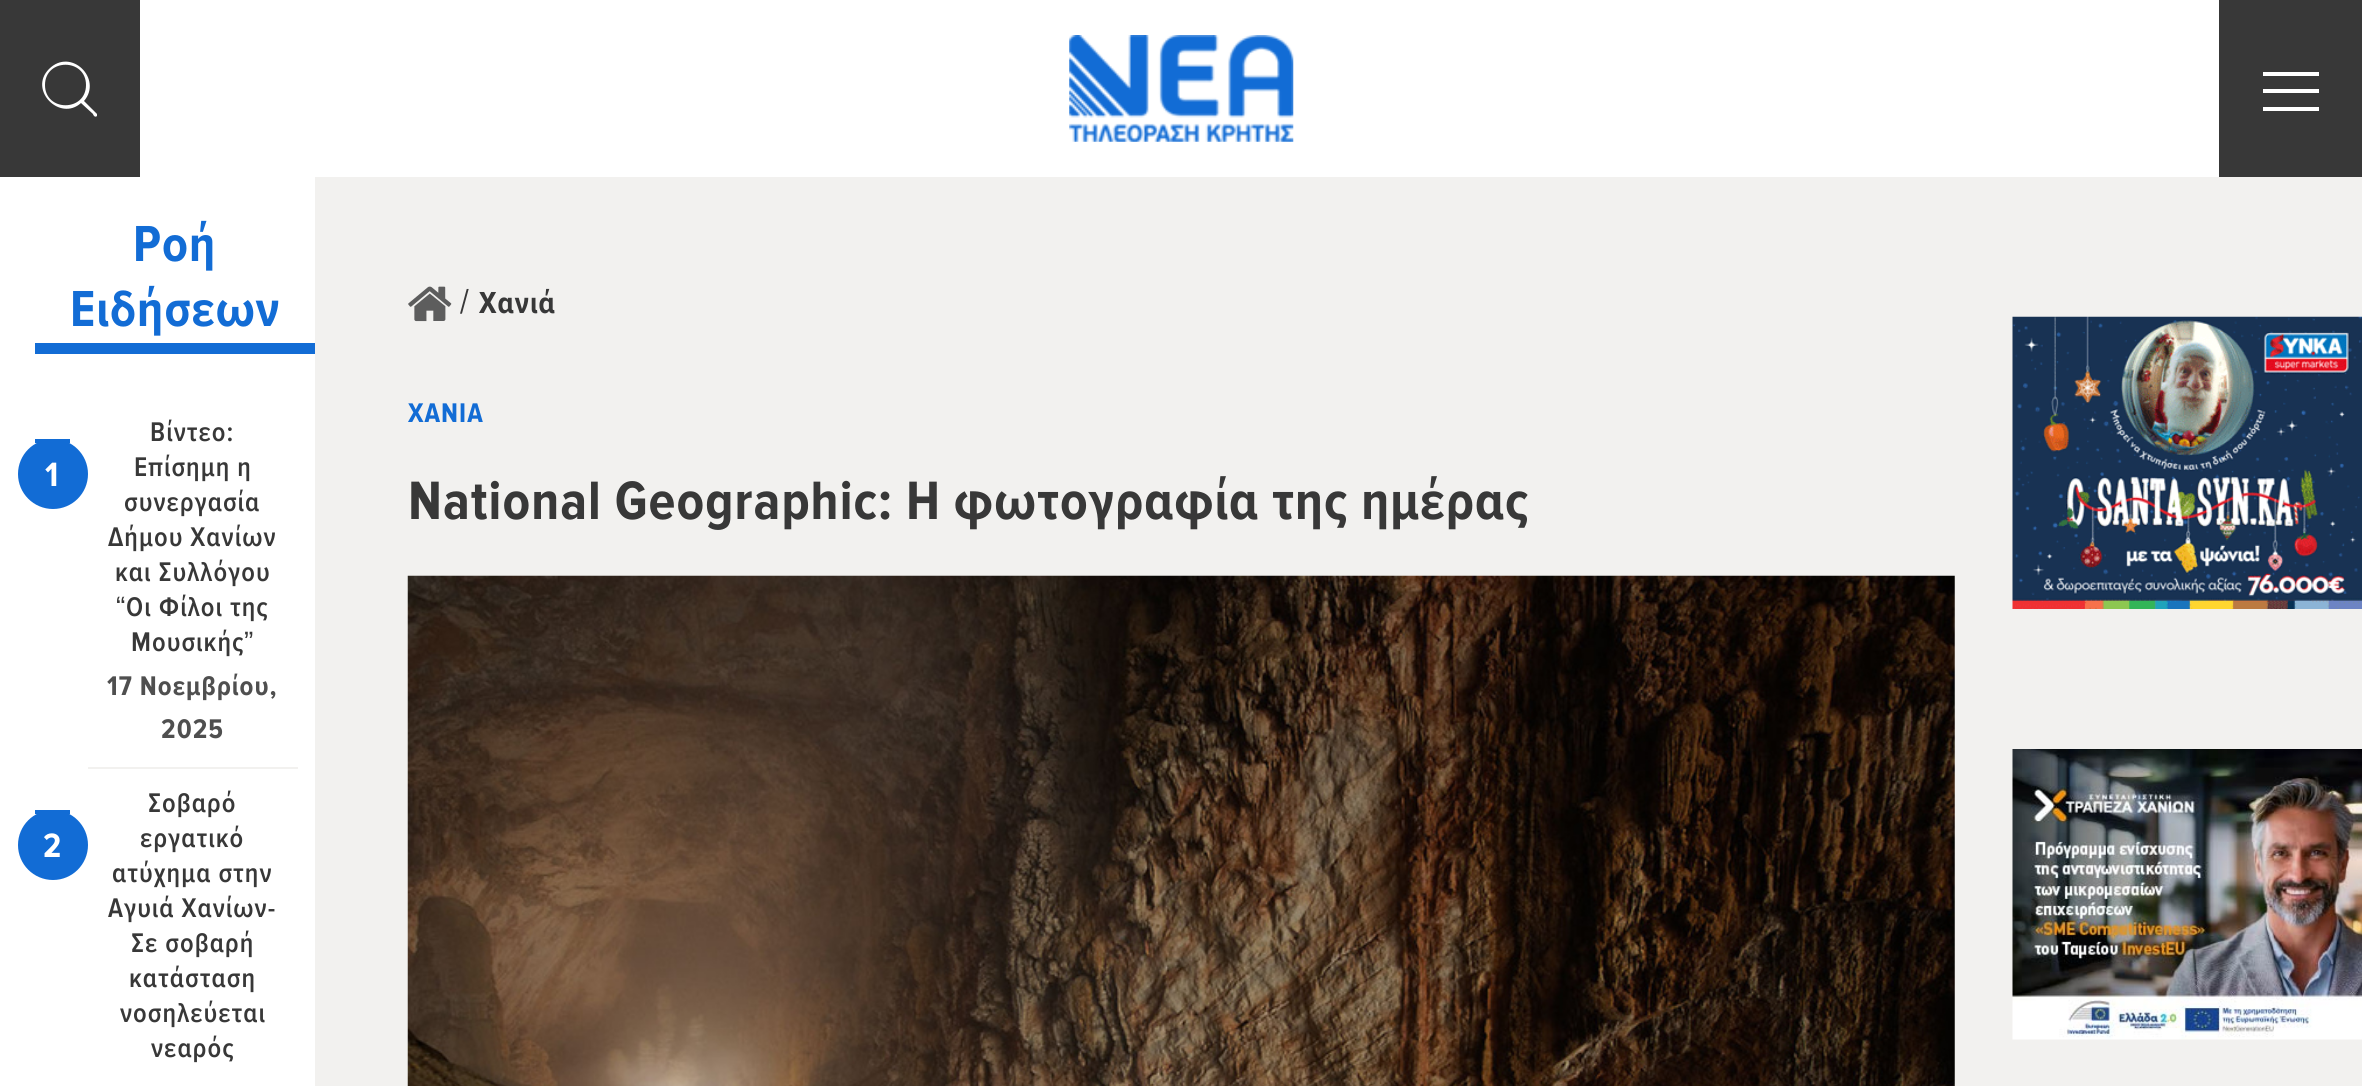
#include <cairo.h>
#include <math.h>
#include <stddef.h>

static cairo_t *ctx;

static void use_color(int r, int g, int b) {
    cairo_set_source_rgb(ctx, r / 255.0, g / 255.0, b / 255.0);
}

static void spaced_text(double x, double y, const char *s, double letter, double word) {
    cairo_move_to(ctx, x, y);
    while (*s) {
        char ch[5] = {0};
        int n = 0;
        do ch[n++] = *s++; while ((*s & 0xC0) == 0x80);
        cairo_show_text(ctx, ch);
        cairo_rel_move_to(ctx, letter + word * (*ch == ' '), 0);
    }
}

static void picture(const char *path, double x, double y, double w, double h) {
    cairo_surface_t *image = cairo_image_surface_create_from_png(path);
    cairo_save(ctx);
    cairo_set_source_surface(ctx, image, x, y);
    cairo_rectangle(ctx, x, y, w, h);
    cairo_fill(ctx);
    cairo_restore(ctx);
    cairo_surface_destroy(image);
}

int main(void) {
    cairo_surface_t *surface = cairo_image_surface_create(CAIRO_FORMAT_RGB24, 2362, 1086);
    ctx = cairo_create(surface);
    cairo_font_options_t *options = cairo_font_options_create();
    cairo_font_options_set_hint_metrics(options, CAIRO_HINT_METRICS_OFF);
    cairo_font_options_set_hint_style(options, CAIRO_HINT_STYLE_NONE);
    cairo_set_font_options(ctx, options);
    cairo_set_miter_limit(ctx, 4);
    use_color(242, 241, 239);
    cairo_paint(ctx);
    use_color(255, 255, 255);
    cairo_rectangle(ctx, 140, 0, 2079, 177);
    cairo_fill(ctx);
    use_color(56, 56, 56);
    cairo_rectangle(ctx, 0, 0, 140, 177);
    cairo_fill(ctx);
    use_color(255, 255, 255);
    cairo_new_path(ctx);
    cairo_move_to(ctx, 97, 114);
    cairo_line_to(ctx, 84, 101);
    cairo_curve_to(ctx, 103, 79, 71, 47, 49, 69);
    cairo_curve_to(ctx, 28, 90, 60, 122, 81, 103);
    cairo_line_to(ctx, 93, 114);
    cairo_curve_to(ctx, 93, 115, 95, 118, 97, 116);
    cairo_line_to(ctx, 97, 115);
    cairo_line_to(ctx, 97, 114);
    cairo_move_to(ctx, 45, 85);
    cairo_curve_to(ctx, 45, 58, 86, 58, 86, 85);
    cairo_curve_to(ctx, 86, 112, 45, 112, 45, 85);
    cairo_fill(ctx);
    picture("img1.png", 1069, 35, 225, 107);
    use_color(56, 56, 56);
    cairo_rectangle(ctx, 2219, 0, 143, 177);
    cairo_fill(ctx);
    use_color(255, 255, 255);
    cairo_rectangle(ctx, 2263, 72, 56, 4);
    cairo_fill(ctx);
    cairo_rectangle(ctx, 2263, 89, 56, 4);
    cairo_fill(ctx);
    cairo_rectangle(ctx, 2263, 107, 56, 4);
    cairo_fill(ctx);
    cairo_rectangle(ctx, 0, 177, 315, 909);
    cairo_fill(ctx);
    use_color(18, 108, 213);
    cairo_rectangle(ctx, 35, 343, 280, 11);
    cairo_fill(ctx);
    cairo_select_font_face(ctx, "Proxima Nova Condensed", CAIRO_FONT_SLANT_NORMAL, CAIRO_FONT_WEIGHT_BOLD);
    cairo_set_font_size(ctx, 52.5);
    spaced_text(133, 261, "Ροή", 1.05, 0);
    spaced_text(70, 326, "Ειδήσεων", 1.05, 0);
    cairo_new_path(ctx);
    cairo_arc(ctx, 53, 474, 35, 0, 2 * M_PI);
    cairo_fill(ctx);
    cairo_rectangle(ctx, 35, 439, 35, 4);
    cairo_fill(ctx);
    cairo_set_font_size(ctx, 35);
    use_color(255, 255, 255);
    spaced_text(45, 486, "1", 1.05, 0);
    cairo_select_font_face(ctx, "Proxima Nova Condensed SemiBold", CAIRO_FONT_SLANT_NORMAL, CAIRO_FONT_WEIGHT_NORMAL);
    cairo_set_font_size(ctx, 28);
    use_color(56, 56, 56);
    spaced_text(150, 441, "Βίντεο:", 1.05, 0);
    spaced_text(134, 476, "Επίσημη η", 1.05, 0);
    spaced_text(124, 511, "συνεργασία", 1.05, 0);
    spaced_text(108, 546, "Δήμου Χανίων", 1.05, 0);
    spaced_text(115, 581, "και Συλλόγου", 1.05, 0);
    cairo_select_font_face(ctx, "Liberation Sans", CAIRO_FONT_SLANT_NORMAL, CAIRO_FONT_WEIGHT_NORMAL);
    spaced_text(116, 616, "“", 1.05, 0);
    cairo_select_font_face(ctx, "Proxima Nova Condensed SemiBold", CAIRO_FONT_SLANT_NORMAL, CAIRO_FONT_WEIGHT_NORMAL);
    spaced_text(126, 616, "Οι Φίλοι της", 1.05, 0);
    spaced_text(131, 651, "Μουσικής", 1.05, 0);
    cairo_select_font_face(ctx, "Liberation Sans", CAIRO_FONT_SLANT_NORMAL, CAIRO_FONT_WEIGHT_NORMAL);
    spaced_text(244, 651, "”", 1.05, 0);
    cairo_select_font_face(ctx, "Proxima Nova Condensed", CAIRO_FONT_SLANT_NORMAL, CAIRO_FONT_WEIGHT_BOLD);
    use_color(79, 79, 79);
    spaced_text(107, 695, "17 Νοεμβρίου,", 1.05, 0);
    spaced_text(161, 738, "2025", 1.05, 0);
    use_color(242, 241, 239);
    cairo_rectangle(ctx, 88, 767, 210, 2);
    cairo_fill(ctx);
    use_color(18, 108, 213);
    cairo_arc(ctx, 53, 845, 35, 0, 2 * M_PI);
    cairo_fill(ctx);
    cairo_rectangle(ctx, 35, 810, 35, 4);
    cairo_fill(ctx);
    cairo_set_font_size(ctx, 35);
    use_color(255, 255, 255);
    spaced_text(43, 857, "2", 1.05, 0);
    cairo_select_font_face(ctx, "Proxima Nova Condensed SemiBold", CAIRO_FONT_SLANT_NORMAL, CAIRO_FONT_WEIGHT_NORMAL);
    cairo_set_font_size(ctx, 28);
    use_color(56, 56, 56);
    spaced_text(148, 812, "Σοβαρό", 1.05, 0);
    spaced_text(140, 847, "εργατικό", 1.05, 0);
    spaced_text(112, 882, "ατύχημα στην", 1.05, 0);
    spaced_text(108, 917, "Αγυιά Χανίων-", 1.05, 0);
    spaced_text(131, 952, "Σε σοβαρή", 1.05, 0);
    spaced_text(129, 987, "κατάσταση", 1.05, 0);
    spaced_text(120, 1022, "νοσηλεύεται", 1.05, 0);
    spaced_text(151, 1057, "νεαρός", 1.05, 0);
    picture("img2.png", 408, 286, 44, 36);
    cairo_select_font_face(ctx, "Proxima Nova Condensed", CAIRO_FONT_SLANT_NORMAL, CAIRO_FONT_WEIGHT_NORMAL);
    cairo_set_font_size(ctx, 35);
    spaced_text(460, 313, "/", 1.05, 0);
    cairo_select_font_face(ctx, "Proxima Nova Condensed", CAIRO_FONT_SLANT_NORMAL, CAIRO_FONT_WEIGHT_BOLD);
    cairo_set_font_size(ctx, 31.5);
    spaced_text(479, 313, "Χανιά", 1.05, 0);
    cairo_set_font_size(ctx, 28);
    use_color(18, 108, 213);
    spaced_text(408, 422, "ΧΑΝΙΑ", 1.05, 0);
    cairo_set_font_size(ctx, 56);
    use_color(56, 56, 56);
    spaced_text(408, 519, "National Geographic: H φωτογραφία της ημέρας", 1.05, 0);
    picture("img3.png", 407, 575, 1548, 511);
    picture("img4.png", 2012, 316, 350, 293);
    picture("img5.png", 2012, 749, 350, 291);
    cairo_surface_write_to_png(surface, "result.png");
    cairo_font_options_destroy(options);
    cairo_destroy(ctx);
    cairo_surface_destroy(surface);
    return 0;
}
